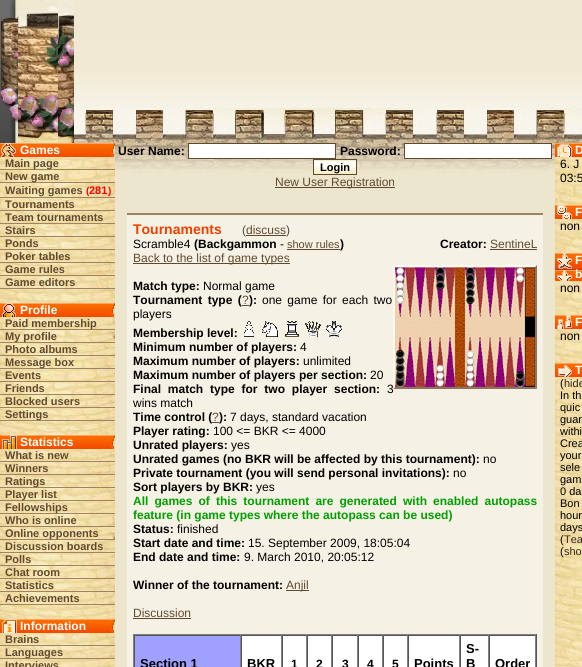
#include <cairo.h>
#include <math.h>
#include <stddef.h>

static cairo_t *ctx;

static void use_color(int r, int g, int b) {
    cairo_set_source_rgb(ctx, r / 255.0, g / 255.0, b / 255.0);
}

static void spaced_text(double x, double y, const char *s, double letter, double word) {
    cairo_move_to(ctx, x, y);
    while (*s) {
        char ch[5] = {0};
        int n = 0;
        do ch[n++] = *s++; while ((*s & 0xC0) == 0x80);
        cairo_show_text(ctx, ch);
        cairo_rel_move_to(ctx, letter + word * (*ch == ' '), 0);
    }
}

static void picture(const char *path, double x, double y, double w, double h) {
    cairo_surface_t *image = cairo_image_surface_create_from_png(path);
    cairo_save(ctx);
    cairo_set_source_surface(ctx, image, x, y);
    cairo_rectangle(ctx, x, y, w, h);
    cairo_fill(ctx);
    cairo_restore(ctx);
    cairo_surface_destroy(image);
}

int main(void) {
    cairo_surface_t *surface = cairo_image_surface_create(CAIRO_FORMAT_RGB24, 582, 667);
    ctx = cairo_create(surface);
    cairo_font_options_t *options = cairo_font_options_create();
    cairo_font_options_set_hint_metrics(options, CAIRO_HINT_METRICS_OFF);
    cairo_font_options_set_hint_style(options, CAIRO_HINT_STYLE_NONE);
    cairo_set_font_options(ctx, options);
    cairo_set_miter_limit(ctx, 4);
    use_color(255, 255, 255);
    cairo_paint(ctx);
    picture("img1.png", 0, 0, 18, 143);
    picture("img2.png", 18, 0, 40, 143);
    picture("img3.png", 58, 0, 16, 143);
    picture("img4.png", 74, 0, 508, 143);
    picture("img5.png", 0, 146, 115, 521);
    picture("img6.png", 0, 143, 115, 14);
    cairo_select_font_face(ctx, "Liberation Sans", CAIRO_FONT_SLANT_NORMAL, CAIRO_FONT_WEIGHT_BOLD);
    cairo_set_font_size(ctx, 12);
    use_color(255, 255, 255);
    cairo_move_to(ctx, 20, 154);
    cairo_show_text(ctx, "Games");
    use_color(160, 131, 100);
    cairo_rectangle(ctx, 0, 169, 115, 1);
    cairo_fill(ctx);
    cairo_set_font_size(ctx, 11);
    use_color(97, 73, 48);
    cairo_move_to(ctx, 5, 167);
    cairo_show_text(ctx, "Main page");
    use_color(160, 131, 100);
    cairo_rectangle(ctx, 0, 182, 115, 1);
    cairo_fill(ctx);
    use_color(97, 73, 48);
    cairo_move_to(ctx, 5, 180);
    cairo_show_text(ctx, "New game");
    use_color(160, 131, 100);
    cairo_rectangle(ctx, 0, 197, 115, 1);
    cairo_fill(ctx);
    use_color(97, 73, 48);
    cairo_move_to(ctx, 5, 194);
    cairo_show_text(ctx, "Waiting games");
    cairo_set_font_size(ctx, 10);
    use_color(255, 0, 0);
    cairo_move_to(ctx, 86, 194);
    cairo_show_text(ctx, "(");
    cairo_set_font_size(ctx, 11);
    cairo_move_to(ctx, 89, 194);
    cairo_show_text(ctx, "281");
    cairo_set_font_size(ctx, 10);
    cairo_move_to(ctx, 108, 194);
    cairo_show_text(ctx, ")");
    use_color(160, 131, 100);
    cairo_rectangle(ctx, 0, 210, 115, 1);
    cairo_fill(ctx);
    cairo_set_font_size(ctx, 11);
    use_color(97, 73, 48);
    cairo_move_to(ctx, 5, 208);
    cairo_show_text(ctx, "Tournaments");
    use_color(160, 131, 100);
    cairo_rectangle(ctx, 0, 223, 115, 1);
    cairo_fill(ctx);
    use_color(97, 73, 48);
    cairo_move_to(ctx, 5, 221);
    cairo_show_text(ctx, "Team tournaments");
    use_color(160, 131, 100);
    cairo_rectangle(ctx, 0, 236, 115, 1);
    cairo_fill(ctx);
    use_color(97, 73, 48);
    cairo_move_to(ctx, 5, 234);
    cairo_show_text(ctx, "Stairs");
    use_color(160, 131, 100);
    cairo_rectangle(ctx, 0, 249, 115, 1);
    cairo_fill(ctx);
    use_color(97, 73, 48);
    cairo_move_to(ctx, 5, 247);
    cairo_show_text(ctx, "Ponds");
    use_color(160, 131, 100);
    cairo_rectangle(ctx, 0, 262, 115, 1);
    cairo_fill(ctx);
    use_color(97, 73, 48);
    cairo_move_to(ctx, 5, 260);
    cairo_show_text(ctx, "Poker tables");
    use_color(160, 131, 100);
    cairo_rectangle(ctx, 0, 275, 115, 1);
    cairo_fill(ctx);
    use_color(97, 73, 48);
    cairo_move_to(ctx, 5, 273);
    cairo_show_text(ctx, "Game rules");
    use_color(160, 131, 100);
    cairo_rectangle(ctx, 0, 288, 115, 1);
    cairo_fill(ctx);
    use_color(97, 73, 48);
    cairo_move_to(ctx, 5, 286);
    cairo_show_text(ctx, "Game editors");
    picture("img7.png", 0, 303, 115, 14);
    cairo_set_font_size(ctx, 12);
    use_color(255, 255, 255);
    cairo_move_to(ctx, 20, 314);
    cairo_show_text(ctx, "Profile");
    use_color(160, 131, 100);
    cairo_rectangle(ctx, 0, 329, 115, 1);
    cairo_fill(ctx);
    cairo_set_font_size(ctx, 11);
    use_color(97, 73, 48);
    cairo_move_to(ctx, 5, 327);
    cairo_show_text(ctx, "Paid membership");
    use_color(160, 131, 100);
    cairo_rectangle(ctx, 0, 342, 115, 1);
    cairo_fill(ctx);
    use_color(97, 73, 48);
    cairo_move_to(ctx, 5, 340);
    cairo_show_text(ctx, "My profile");
    use_color(160, 131, 100);
    cairo_rectangle(ctx, 0, 355, 115, 1);
    cairo_fill(ctx);
    use_color(97, 73, 48);
    cairo_move_to(ctx, 5, 353);
    cairo_show_text(ctx, "Photo albums");
    use_color(160, 131, 100);
    cairo_rectangle(ctx, 0, 368, 115, 1);
    cairo_fill(ctx);
    use_color(97, 73, 48);
    cairo_move_to(ctx, 5, 366);
    cairo_show_text(ctx, "Message box");
    use_color(160, 131, 100);
    cairo_rectangle(ctx, 0, 381, 115, 1);
    cairo_fill(ctx);
    use_color(97, 73, 48);
    cairo_move_to(ctx, 5, 379);
    cairo_show_text(ctx, "Events");
    use_color(160, 131, 100);
    cairo_rectangle(ctx, 0, 394, 115, 1);
    cairo_fill(ctx);
    use_color(97, 73, 48);
    cairo_move_to(ctx, 5, 392);
    cairo_show_text(ctx, "Friends");
    use_color(160, 131, 100);
    cairo_rectangle(ctx, 0, 407, 115, 1);
    cairo_fill(ctx);
    use_color(97, 73, 48);
    cairo_move_to(ctx, 5, 405);
    cairo_show_text(ctx, "Blocked users");
    use_color(160, 131, 100);
    cairo_rectangle(ctx, 0, 420, 115, 1);
    cairo_fill(ctx);
    use_color(97, 73, 48);
    cairo_move_to(ctx, 5, 418);
    cairo_show_text(ctx, "Settings");
    picture("img8.png", 0, 435, 115, 14);
    cairo_set_font_size(ctx, 12);
    use_color(255, 255, 255);
    cairo_move_to(ctx, 20, 446);
    cairo_show_text(ctx, "Statistics");
    use_color(160, 131, 100);
    cairo_rectangle(ctx, 0, 461, 115, 1);
    cairo_fill(ctx);
    cairo_set_font_size(ctx, 11);
    use_color(97, 73, 48);
    cairo_move_to(ctx, 5, 459);
    cairo_show_text(ctx, "What is new");
    use_color(160, 131, 100);
    cairo_rectangle(ctx, 0, 474, 115, 1);
    cairo_fill(ctx);
    use_color(97, 73, 48);
    cairo_move_to(ctx, 5, 472);
    cairo_show_text(ctx, "Winners");
    use_color(160, 131, 100);
    cairo_rectangle(ctx, 0, 487, 115, 1);
    cairo_fill(ctx);
    use_color(97, 73, 48);
    cairo_move_to(ctx, 5, 485);
    cairo_show_text(ctx, "Ratings");
    use_color(160, 131, 100);
    cairo_rectangle(ctx, 0, 500, 115, 1);
    cairo_fill(ctx);
    use_color(97, 73, 48);
    cairo_move_to(ctx, 5, 498);
    cairo_show_text(ctx, "Player list");
    use_color(160, 131, 100);
    cairo_rectangle(ctx, 0, 513, 115, 1);
    cairo_fill(ctx);
    use_color(97, 73, 48);
    cairo_move_to(ctx, 5, 511);
    cairo_show_text(ctx, "Fellowships");
    use_color(160, 131, 100);
    cairo_rectangle(ctx, 0, 526, 115, 1);
    cairo_fill(ctx);
    use_color(97, 73, 48);
    cairo_move_to(ctx, 5, 524);
    cairo_show_text(ctx, "Who is online");
    use_color(160, 131, 100);
    cairo_rectangle(ctx, 0, 539, 115, 1);
    cairo_fill(ctx);
    use_color(97, 73, 48);
    cairo_move_to(ctx, 5, 537);
    cairo_show_text(ctx, "Online opponents");
    use_color(160, 131, 100);
    cairo_rectangle(ctx, 0, 552, 115, 1);
    cairo_fill(ctx);
    use_color(97, 73, 48);
    cairo_move_to(ctx, 5, 550);
    cairo_show_text(ctx, "Discussion boards");
    use_color(160, 131, 100);
    cairo_rectangle(ctx, 0, 565, 115, 1);
    cairo_fill(ctx);
    use_color(97, 73, 48);
    cairo_move_to(ctx, 5, 563);
    cairo_show_text(ctx, "Polls");
    use_color(160, 131, 100);
    cairo_rectangle(ctx, 0, 578, 115, 1);
    cairo_fill(ctx);
    use_color(97, 73, 48);
    cairo_move_to(ctx, 5, 576);
    cairo_show_text(ctx, "Chat room");
    use_color(160, 131, 100);
    cairo_rectangle(ctx, 0, 591, 115, 1);
    cairo_fill(ctx);
    use_color(97, 73, 48);
    cairo_move_to(ctx, 5, 589);
    cairo_show_text(ctx, "Statistics");
    use_color(160, 131, 100);
    cairo_rectangle(ctx, 0, 604, 115, 1);
    cairo_fill(ctx);
    use_color(97, 73, 48);
    cairo_move_to(ctx, 5, 602);
    cairo_show_text(ctx, "Achievements");
    picture("img9.png", 0, 619, 115, 14);
    cairo_set_font_size(ctx, 12);
    use_color(255, 255, 255);
    cairo_move_to(ctx, 20, 630);
    cairo_show_text(ctx, "Information");
    use_color(160, 131, 100);
    cairo_rectangle(ctx, 0, 645, 115, 1);
    cairo_fill(ctx);
    cairo_set_font_size(ctx, 11);
    use_color(97, 73, 48);
    cairo_move_to(ctx, 5, 643);
    cairo_show_text(ctx, "Brains");
    use_color(160, 131, 100);
    cairo_rectangle(ctx, 0, 658, 115, 1);
    cairo_fill(ctx);
    use_color(97, 73, 48);
    cairo_move_to(ctx, 5, 656);
    cairo_show_text(ctx, "Languages");
    cairo_move_to(ctx, 5, 669);
    cairo_show_text(ctx, "Interviews");
    use_color(237, 230, 206);
    cairo_rectangle(ctx, 115, 175, 440, 492);
    cairo_fill(ctx);
    picture("img10.png", 115, 143, 440, 32);
    cairo_set_font_size(ctx, 12);
    use_color(0, 0, 0);
    cairo_move_to(ctx, 118, 155);
    cairo_show_text(ctx, "User Name:");
    use_color(255, 255, 255);
    cairo_rectangle(ctx, 188.5, 143.5, 147, 15);
    cairo_fill_preserve(ctx);
    use_color(97, 73, 48);
    cairo_set_line_width(ctx, 1);
    cairo_stroke(ctx);
    use_color(0, 0, 0);
    cairo_move_to(ctx, 340, 155);
    cairo_show_text(ctx, "Password:");
    use_color(255, 255, 255);
    cairo_rectangle(ctx, 404.5, 143.5, 147, 15);
    cairo_fill_preserve(ctx);
    use_color(97, 73, 48);
    cairo_stroke(ctx);
    use_color(246, 236, 194);
    cairo_rectangle(ctx, 314, 160, 42, 1);
    cairo_fill(ctx);
    picture("img11.png", 314, 161, 42, 13);
    cairo_rectangle(ctx, 313.5, 159.5, 43, 15);
    use_color(97, 73, 48);
    cairo_stroke(ctx);
    cairo_set_font_size(ctx, 11);
    use_color(0, 0, 0);
    cairo_move_to(ctx, 320, 171);
    cairo_show_text(ctx, "Login");
    use_color(97, 73, 48);
    cairo_rectangle(ctx, 275, 187, 120, 1);
    cairo_fill(ctx);
    cairo_select_font_face(ctx, "Liberation Sans", CAIRO_FONT_SLANT_NORMAL, CAIRO_FONT_WEIGHT_NORMAL);
    cairo_set_font_size(ctx, 12);
    cairo_move_to(ctx, 275, 186);
    cairo_show_text(ctx, "New User Registration");
    use_color(245, 241, 228);
    cairo_rectangle(ctx, 127, 215, 416, 452);
    cairo_fill(ctx);
    use_color(160, 131, 100);
    cairo_rectangle(ctx, 127, 213, 416, 2);
    cairo_fill(ctx);
    cairo_select_font_face(ctx, "Liberation Sans", CAIRO_FONT_SLANT_NORMAL, CAIRO_FONT_WEIGHT_BOLD);
    cairo_set_font_size(ctx, 14);
    use_color(239, 64, 0);
    cairo_move_to(ctx, 133, 234);
    cairo_show_text(ctx, "Tournaments");
    cairo_select_font_face(ctx, "Liberation Sans", CAIRO_FONT_SLANT_NORMAL, CAIRO_FONT_WEIGHT_NORMAL);
    cairo_set_font_size(ctx, 12);
    use_color(74, 74, 74);
    cairo_move_to(ctx, 242, 234);
    cairo_show_text(ctx, "(");
    use_color(97, 73, 48);
    cairo_rectangle(ctx, 246, 235, 40, 1);
    cairo_fill(ctx);
    cairo_move_to(ctx, 246, 234);
    cairo_show_text(ctx, "discuss");
    use_color(74, 74, 74);
    cairo_move_to(ctx, 286, 234);
    cairo_show_text(ctx, ")");
    use_color(0, 0, 0);
    cairo_move_to(ctx, 133, 248);
    cairo_show_text(ctx, "Scramble4");
    cairo_select_font_face(ctx, "Liberation Sans", CAIRO_FONT_SLANT_NORMAL, CAIRO_FONT_WEIGHT_BOLD);
    cairo_move_to(ctx, 194, 248);
    cairo_show_text(ctx, "(Backgammon");
    cairo_select_font_face(ctx, "Liberation Sans", CAIRO_FONT_SLANT_NORMAL, CAIRO_FONT_WEIGHT_NORMAL);
    cairo_move_to(ctx, 280, 248);
    cairo_show_text(ctx, "-");
    cairo_set_font_size(ctx, 11);
    use_color(97, 73, 48);
    cairo_move_to(ctx, 287, 248);
    cairo_show_text(ctx, "show rules");
    cairo_rectangle(ctx, 287, 249, 53, 1);
    cairo_fill(ctx);
    cairo_select_font_face(ctx, "Liberation Sans", CAIRO_FONT_SLANT_NORMAL, CAIRO_FONT_WEIGHT_BOLD);
    cairo_set_font_size(ctx, 12);
    use_color(0, 0, 0);
    cairo_move_to(ctx, 340, 248);
    cairo_show_text(ctx, ")");
    cairo_move_to(ctx, 440, 248);
    cairo_show_text(ctx, "Creator:");
    cairo_select_font_face(ctx, "Liberation Sans", CAIRO_FONT_SLANT_NORMAL, CAIRO_FONT_WEIGHT_NORMAL);
    use_color(97, 73, 48);
    cairo_move_to(ctx, 490, 248);
    cairo_show_text(ctx, "SentineL");
    cairo_rectangle(ctx, 490, 249, 47, 1);
    cairo_fill(ctx);
    cairo_rectangle(ctx, 133, 263, 157, 1);
    cairo_fill(ctx);
    cairo_move_to(ctx, 133, 262);
    cairo_show_text(ctx, "Back to the list of game types");
    cairo_select_font_face(ctx, "Liberation Sans", CAIRO_FONT_SLANT_NORMAL, CAIRO_FONT_WEIGHT_BOLD);
    use_color(0, 0, 0);
    cairo_move_to(ctx, 133, 290);
    cairo_show_text(ctx, "Match type:");
    cairo_select_font_face(ctx, "Liberation Sans", CAIRO_FONT_SLANT_NORMAL, CAIRO_FONT_WEIGHT_NORMAL);
    cairo_move_to(ctx, 203, 290);
    cairo_show_text(ctx, "Normal game");
    use_color(255, 250, 238);
    cairo_new_path(ctx);
    cairo_move_to(ctx, 393, 265);
    cairo_line_to(ctx, 537, 265);
    cairo_line_to(ctx, 535, 267);
    cairo_line_to(ctx, 395, 267);
    cairo_close_path(ctx);
    cairo_fill(ctx);
    use_color(139, 115, 92);
    cairo_new_path(ctx);
    cairo_move_to(ctx, 537, 265);
    cairo_line_to(ctx, 537, 389);
    cairo_line_to(ctx, 535, 387);
    cairo_line_to(ctx, 535, 267);
    cairo_close_path(ctx);
    cairo_fill(ctx);
    cairo_new_path(ctx);
    cairo_move_to(ctx, 537, 389);
    cairo_line_to(ctx, 393, 389);
    cairo_line_to(ctx, 395, 387);
    cairo_line_to(ctx, 535, 387);
    cairo_close_path(ctx);
    cairo_fill(ctx);
    use_color(255, 250, 238);
    cairo_new_path(ctx);
    cairo_move_to(ctx, 393, 389);
    cairo_line_to(ctx, 393, 265);
    cairo_line_to(ctx, 395, 267);
    cairo_line_to(ctx, 395, 387);
    cairo_close_path(ctx);
    cairo_fill(ctx);
    picture("img12.png", 395, 267, 140, 120);
    cairo_select_font_face(ctx, "Liberation Sans", CAIRO_FONT_SLANT_NORMAL, CAIRO_FONT_WEIGHT_BOLD);
    use_color(0, 0, 0);
    spaced_text(133, 304, "Tournament type (", 0, 2);
    use_color(97, 73, 48);
    cairo_rectangle(ctx, 242, 305, 7, 1);
    cairo_fill(ctx);
    cairo_select_font_face(ctx, "Liberation Sans", CAIRO_FONT_SLANT_NORMAL, CAIRO_FONT_WEIGHT_NORMAL);
    cairo_move_to(ctx, 242, 304);
    cairo_show_text(ctx, "?");
    cairo_select_font_face(ctx, "Liberation Sans", CAIRO_FONT_SLANT_NORMAL, CAIRO_FONT_WEIGHT_BOLD);
    use_color(0, 0, 0);
    cairo_move_to(ctx, 249, 304);
    cairo_show_text(ctx, "):");
    cairo_select_font_face(ctx, "Liberation Sans", CAIRO_FONT_SLANT_NORMAL, CAIRO_FONT_WEIGHT_NORMAL);
    spaced_text(262, 304, "one game for each two", 0, 2);
    cairo_move_to(ctx, 133, 318);
    cairo_show_text(ctx, "players");
    cairo_select_font_face(ctx, "Liberation Sans", CAIRO_FONT_SLANT_NORMAL, CAIRO_FONT_WEIGHT_BOLD);
    cairo_move_to(ctx, 133, 337);
    cairo_show_text(ctx, "Membership level:");
    picture("img13.png", 244, 321, 10, 16);
    picture("img14.png", 262, 321, 16, 16);
    picture("img15.png", 285, 321, 14, 16);
    picture("img16.png", 305, 321, 16, 16);
    picture("img17.png", 326, 321, 16, 16);
    cairo_move_to(ctx, 133, 351);
    cairo_show_text(ctx, "Minimum number of players:");
    cairo_select_font_face(ctx, "Liberation Sans", CAIRO_FONT_SLANT_NORMAL, CAIRO_FONT_WEIGHT_NORMAL);
    cairo_move_to(ctx, 300, 351);
    cairo_show_text(ctx, "4");
    cairo_select_font_face(ctx, "Liberation Sans", CAIRO_FONT_SLANT_NORMAL, CAIRO_FONT_WEIGHT_BOLD);
    cairo_move_to(ctx, 133, 365);
    cairo_show_text(ctx, "Maximum number of players:");
    cairo_select_font_face(ctx, "Liberation Sans", CAIRO_FONT_SLANT_NORMAL, CAIRO_FONT_WEIGHT_NORMAL);
    cairo_move_to(ctx, 303, 365);
    cairo_show_text(ctx, "unlimited");
    cairo_select_font_face(ctx, "Liberation Sans", CAIRO_FONT_SLANT_NORMAL, CAIRO_FONT_WEIGHT_BOLD);
    cairo_move_to(ctx, 133, 379);
    cairo_show_text(ctx, "Maximum number of players per section:");
    cairo_select_font_face(ctx, "Liberation Sans", CAIRO_FONT_SLANT_NORMAL, CAIRO_FONT_WEIGHT_NORMAL);
    cairo_move_to(ctx, 370, 379);
    cairo_show_text(ctx, "20");
    cairo_select_font_face(ctx, "Liberation Sans", CAIRO_FONT_SLANT_NORMAL, CAIRO_FONT_WEIGHT_BOLD);
    spaced_text(133, 393, "Final match type for two player section:", 0, 3.5);
    cairo_select_font_face(ctx, "Liberation Sans", CAIRO_FONT_SLANT_NORMAL, CAIRO_FONT_WEIGHT_NORMAL);
    cairo_move_to(ctx, 387, 393);
    cairo_show_text(ctx, "3");
    cairo_move_to(ctx, 133, 407);
    cairo_show_text(ctx, "wins match");
    cairo_select_font_face(ctx, "Liberation Sans", CAIRO_FONT_SLANT_NORMAL, CAIRO_FONT_WEIGHT_BOLD);
    cairo_move_to(ctx, 133, 421);
    cairo_show_text(ctx, "Time control (");
    use_color(97, 73, 48);
    cairo_rectangle(ctx, 212, 422, 7, 1);
    cairo_fill(ctx);
    cairo_select_font_face(ctx, "Liberation Sans", CAIRO_FONT_SLANT_NORMAL, CAIRO_FONT_WEIGHT_NORMAL);
    cairo_move_to(ctx, 212, 421);
    cairo_show_text(ctx, "?");
    cairo_select_font_face(ctx, "Liberation Sans", CAIRO_FONT_SLANT_NORMAL, CAIRO_FONT_WEIGHT_BOLD);
    use_color(0, 0, 0);
    cairo_move_to(ctx, 219, 421);
    cairo_show_text(ctx, "):");
    cairo_select_font_face(ctx, "Liberation Sans", CAIRO_FONT_SLANT_NORMAL, CAIRO_FONT_WEIGHT_NORMAL);
    cairo_move_to(ctx, 230, 421);
    cairo_show_text(ctx, "7 days, standard vacation");
    cairo_select_font_face(ctx, "Liberation Sans", CAIRO_FONT_SLANT_NORMAL, CAIRO_FONT_WEIGHT_BOLD);
    cairo_move_to(ctx, 133, 435);
    cairo_show_text(ctx, "Player rating:");
    cairo_select_font_face(ctx, "Liberation Sans", CAIRO_FONT_SLANT_NORMAL, CAIRO_FONT_WEIGHT_NORMAL);
    cairo_move_to(ctx, 213, 435);
    cairo_show_text(ctx, "100 <= BKR <= 4000");
    cairo_select_font_face(ctx, "Liberation Sans", CAIRO_FONT_SLANT_NORMAL, CAIRO_FONT_WEIGHT_BOLD);
    cairo_move_to(ctx, 133, 449);
    cairo_show_text(ctx, "Unrated players:");
    cairo_select_font_face(ctx, "Liberation Sans", CAIRO_FONT_SLANT_NORMAL, CAIRO_FONT_WEIGHT_NORMAL);
    cairo_move_to(ctx, 231, 449);
    cairo_show_text(ctx, "yes");
    cairo_select_font_face(ctx, "Liberation Sans", CAIRO_FONT_SLANT_NORMAL, CAIRO_FONT_WEIGHT_BOLD);
    cairo_move_to(ctx, 133, 463);
    cairo_show_text(ctx, "Unrated games (no BKR will be affected by this tournament):");
    cairo_select_font_face(ctx, "Liberation Sans", CAIRO_FONT_SLANT_NORMAL, CAIRO_FONT_WEIGHT_NORMAL);
    cairo_move_to(ctx, 483, 463);
    cairo_show_text(ctx, "no");
    cairo_select_font_face(ctx, "Liberation Sans", CAIRO_FONT_SLANT_NORMAL, CAIRO_FONT_WEIGHT_BOLD);
    cairo_move_to(ctx, 133, 477);
    cairo_show_text(ctx, "Private tournament (you will send personal invitations):");
    cairo_select_font_face(ctx, "Liberation Sans", CAIRO_FONT_SLANT_NORMAL, CAIRO_FONT_WEIGHT_NORMAL);
    cairo_move_to(ctx, 453, 477);
    cairo_show_text(ctx, "no");
    cairo_select_font_face(ctx, "Liberation Sans", CAIRO_FONT_SLANT_NORMAL, CAIRO_FONT_WEIGHT_BOLD);
    cairo_move_to(ctx, 133, 491);
    cairo_show_text(ctx, "Sort players by BKR:");
    cairo_select_font_face(ctx, "Liberation Sans", CAIRO_FONT_SLANT_NORMAL, CAIRO_FONT_WEIGHT_NORMAL);
    cairo_move_to(ctx, 256, 491);
    cairo_show_text(ctx, "yes");
    cairo_select_font_face(ctx, "Liberation Sans", CAIRO_FONT_SLANT_NORMAL, CAIRO_FONT_WEIGHT_BOLD);
    use_color(0, 160, 0);
    spaced_text(133, 505, "All games of this tournament are generated with enabled autopass", 0, 2.75);
    cairo_move_to(ctx, 133, 519);
    cairo_show_text(ctx, "feature (in game types where the autopass can be used)");
    use_color(0, 0, 0);
    cairo_move_to(ctx, 133, 533);
    cairo_show_text(ctx, "Status:");
    cairo_select_font_face(ctx, "Liberation Sans", CAIRO_FONT_SLANT_NORMAL, CAIRO_FONT_WEIGHT_NORMAL);
    cairo_move_to(ctx, 177, 533);
    cairo_show_text(ctx, "finished");
    cairo_select_font_face(ctx, "Liberation Sans", CAIRO_FONT_SLANT_NORMAL, CAIRO_FONT_WEIGHT_BOLD);
    cairo_move_to(ctx, 133, 547);
    cairo_show_text(ctx, "Start date and time:");
    cairo_select_font_face(ctx, "Liberation Sans", CAIRO_FONT_SLANT_NORMAL, CAIRO_FONT_WEIGHT_NORMAL);
    cairo_move_to(ctx, 248, 547);
    cairo_show_text(ctx, "15. September 2009, 18:05:04");
    cairo_select_font_face(ctx, "Liberation Sans", CAIRO_FONT_SLANT_NORMAL, CAIRO_FONT_WEIGHT_BOLD);
    cairo_move_to(ctx, 133, 561);
    cairo_show_text(ctx, "End date and time:");
    cairo_select_font_face(ctx, "Liberation Sans", CAIRO_FONT_SLANT_NORMAL, CAIRO_FONT_WEIGHT_NORMAL);
    cairo_move_to(ctx, 244, 561);
    cairo_show_text(ctx, "9. March 2010, 20:05:12");
    cairo_select_font_face(ctx, "Liberation Sans", CAIRO_FONT_SLANT_NORMAL, CAIRO_FONT_WEIGHT_BOLD);
    cairo_move_to(ctx, 133, 589);
    cairo_show_text(ctx, "Winner of the tournament:");
    use_color(97, 73, 48);
    cairo_rectangle(ctx, 286, 590, 23, 1);
    cairo_fill(ctx);
    cairo_select_font_face(ctx, "Liberation Sans", CAIRO_FONT_SLANT_NORMAL, CAIRO_FONT_WEIGHT_NORMAL);
    cairo_move_to(ctx, 286, 589);
    cairo_show_text(ctx, "Anjil");
    cairo_move_to(ctx, 133, 617);
    cairo_show_text(ctx, "Discussion");
    cairo_rectangle(ctx, 133, 618, 58, 1);
    cairo_fill(ctx);
    use_color(255, 255, 255);
    cairo_rectangle(ctx, 242, 636, 293, 31);
    cairo_fill(ctx);
    use_color(128, 128, 128);
    cairo_rectangle(ctx, 133, 634, 404, 1);
    cairo_fill(ctx);
    use_color(85, 85, 85);
    cairo_rectangle(ctx, 536, 634, 1, 33);
    cairo_fill(ctx);
    use_color(128, 128, 128);
    cairo_rectangle(ctx, 133, 634, 1, 33);
    cairo_fill(ctx);
    use_color(160, 160, 255);
    cairo_rectangle(ctx, 135, 636, 105, 31);
    cairo_fill(ctx);
    use_color(85, 85, 85);
    cairo_rectangle(ctx, 134, 635, 402, 1);
    cairo_fill(ctx);
    use_color(128, 128, 128);
    cairo_rectangle(ctx, 240, 635, 1, 32);
    cairo_fill(ctx);
    use_color(85, 85, 85);
    cairo_rectangle(ctx, 134, 635, 1, 32);
    cairo_fill(ctx);
    cairo_select_font_face(ctx, "Liberation Sans", CAIRO_FONT_SLANT_NORMAL, CAIRO_FONT_WEIGHT_BOLD);
    cairo_set_font_size(ctx, 13);
    use_color(0, 0, 0);
    cairo_move_to(ctx, 140, 668);
    cairo_show_text(ctx, "Section 1");
    use_color(128, 128, 128);
    cairo_rectangle(ctx, 281, 635, 1, 32);
    cairo_fill(ctx);
    use_color(85, 85, 85);
    cairo_rectangle(ctx, 241, 635, 1, 32);
    cairo_fill(ctx);
    use_color(0, 0, 0);
    cairo_move_to(ctx, 247, 668);
    cairo_show_text(ctx, "BKR");
    use_color(128, 128, 128);
    cairo_rectangle(ctx, 306, 635, 1, 32);
    cairo_fill(ctx);
    use_color(85, 85, 85);
    cairo_rectangle(ctx, 282, 635, 1, 32);
    cairo_fill(ctx);
    cairo_set_font_size(ctx, 12);
    use_color(0, 0, 0);
    cairo_move_to(ctx, 291, 668);
    cairo_show_text(ctx, "1");
    use_color(128, 128, 128);
    cairo_rectangle(ctx, 331, 635, 1, 32);
    cairo_fill(ctx);
    use_color(85, 85, 85);
    cairo_rectangle(ctx, 307, 635, 1, 32);
    cairo_fill(ctx);
    use_color(0, 0, 0);
    cairo_move_to(ctx, 316, 668);
    cairo_show_text(ctx, "2");
    use_color(128, 128, 128);
    cairo_rectangle(ctx, 357, 635, 1, 32);
    cairo_fill(ctx);
    use_color(85, 85, 85);
    cairo_rectangle(ctx, 332, 635, 1, 32);
    cairo_fill(ctx);
    use_color(0, 0, 0);
    cairo_move_to(ctx, 342, 668);
    cairo_show_text(ctx, "3");
    use_color(128, 128, 128);
    cairo_rectangle(ctx, 382, 635, 1, 32);
    cairo_fill(ctx);
    use_color(85, 85, 85);
    cairo_rectangle(ctx, 358, 635, 1, 32);
    cairo_fill(ctx);
    use_color(0, 0, 0);
    cairo_move_to(ctx, 367, 668);
    cairo_show_text(ctx, "4");
    use_color(128, 128, 128);
    cairo_rectangle(ctx, 407, 635, 1, 32);
    cairo_fill(ctx);
    use_color(85, 85, 85);
    cairo_rectangle(ctx, 383, 635, 1, 32);
    cairo_fill(ctx);
    use_color(0, 0, 0);
    cairo_move_to(ctx, 392, 668);
    cairo_show_text(ctx, "5");
    use_color(128, 128, 128);
    cairo_rectangle(ctx, 459, 635, 1, 32);
    cairo_fill(ctx);
    use_color(85, 85, 85);
    cairo_rectangle(ctx, 408, 635, 1, 32);
    cairo_fill(ctx);
    cairo_set_font_size(ctx, 13);
    use_color(0, 0, 0);
    cairo_move_to(ctx, 414, 668);
    cairo_show_text(ctx, "Points");
    use_color(128, 128, 128);
    cairo_rectangle(ctx, 488, 635, 1, 32);
    cairo_fill(ctx);
    use_color(85, 85, 85);
    cairo_rectangle(ctx, 460, 635, 1, 32);
    cairo_fill(ctx);
    use_color(0, 0, 0);
    cairo_move_to(ctx, 466, 653);
    cairo_show_text(ctx, "S-");
    cairo_move_to(ctx, 466, 668);
    cairo_show_text(ctx, "B");
    use_color(128, 128, 128);
    cairo_rectangle(ctx, 535, 635, 1, 32);
    cairo_fill(ctx);
    use_color(85, 85, 85);
    cairo_rectangle(ctx, 489, 635, 1, 32);
    cairo_fill(ctx);
    use_color(0, 0, 0);
    cairo_move_to(ctx, 495, 668);
    cairo_show_text(ctx, "Order");
    picture("img18.png", 555, 157, 27, 510);
    picture("img19.png", 555, 143, 27, 14);
    cairo_set_font_size(ctx, 12);
    use_color(255, 255, 255);
    cairo_move_to(ctx, 575, 154);
    cairo_show_text(ctx, "D");
    cairo_select_font_face(ctx, "Liberation Sans", CAIRO_FONT_SLANT_NORMAL, CAIRO_FONT_WEIGHT_NORMAL);
    use_color(0, 0, 0);
    cairo_move_to(ctx, 560, 168);
    cairo_show_text(ctx, "6. J");
    cairo_move_to(ctx, 560, 182);
    cairo_show_text(ctx, "03:5");
    picture("img20.png", 555, 205, 27, 14);
    cairo_select_font_face(ctx, "Liberation Sans", CAIRO_FONT_SLANT_NORMAL, CAIRO_FONT_WEIGHT_BOLD);
    use_color(255, 255, 255);
    cairo_move_to(ctx, 575, 216);
    cairo_show_text(ctx, "F");
    cairo_select_font_face(ctx, "Liberation Sans", CAIRO_FONT_SLANT_NORMAL, CAIRO_FONT_WEIGHT_NORMAL);
    use_color(0, 0, 0);
    cairo_move_to(ctx, 560, 230);
    cairo_show_text(ctx, "non");
    picture("img21.png", 555, 253, 27, 28);
    cairo_select_font_face(ctx, "Liberation Sans", CAIRO_FONT_SLANT_NORMAL, CAIRO_FONT_WEIGHT_BOLD);
    use_color(255, 255, 255);
    cairo_move_to(ctx, 575, 264);
    cairo_show_text(ctx, "F");
    cairo_move_to(ctx, 575, 278);
    cairo_show_text(ctx, "b");
    cairo_select_font_face(ctx, "Liberation Sans", CAIRO_FONT_SLANT_NORMAL, CAIRO_FONT_WEIGHT_NORMAL);
    use_color(0, 0, 0);
    cairo_move_to(ctx, 560, 292);
    cairo_show_text(ctx, "non");
    picture("img22.png", 555, 315, 27, 14);
    cairo_select_font_face(ctx, "Liberation Sans", CAIRO_FONT_SLANT_NORMAL, CAIRO_FONT_WEIGHT_BOLD);
    use_color(255, 255, 255);
    cairo_move_to(ctx, 575, 326);
    cairo_show_text(ctx, "F");
    cairo_select_font_face(ctx, "Liberation Sans", CAIRO_FONT_SLANT_NORMAL, CAIRO_FONT_WEIGHT_NORMAL);
    use_color(0, 0, 0);
    cairo_move_to(ctx, 560, 340);
    cairo_show_text(ctx, "non");
    picture("img23.png", 555, 363, 27, 14);
    cairo_select_font_face(ctx, "Liberation Sans", CAIRO_FONT_SLANT_NORMAL, CAIRO_FONT_WEIGHT_BOLD);
    use_color(255, 255, 255);
    cairo_move_to(ctx, 575, 374);
    cairo_show_text(ctx, "T");
    cairo_select_font_face(ctx, "Liberation Sans", CAIRO_FONT_SLANT_NORMAL, CAIRO_FONT_WEIGHT_NORMAL);
    cairo_set_font_size(ctx, 11);
    use_color(0, 0, 0);
    cairo_move_to(ctx, 560, 387);
    cairo_show_text(ctx, "(");
    use_color(54, 40, 27);
    cairo_move_to(ctx, 564, 387);
    cairo_show_text(ctx, "hide");
    use_color(0, 0, 0);
    cairo_move_to(ctx, 560, 399);
    cairo_show_text(ctx, "In th");
    cairo_move_to(ctx, 560, 411);
    cairo_show_text(ctx, "quic");
    cairo_move_to(ctx, 560, 423);
    cairo_show_text(ctx, "guar");
    cairo_move_to(ctx, 560, 435);
    cairo_show_text(ctx, "withi");
    cairo_move_to(ctx, 560, 447);
    cairo_show_text(ctx, "Crea");
    cairo_move_to(ctx, 560, 459);
    cairo_show_text(ctx, "your");
    cairo_move_to(ctx, 560, 471);
    cairo_show_text(ctx, "sele");
    cairo_move_to(ctx, 560, 483);
    cairo_show_text(ctx, "gam");
    cairo_move_to(ctx, 560, 495);
    cairo_show_text(ctx, "0 da");
    cairo_move_to(ctx, 560, 507);
    cairo_show_text(ctx, "Bon");
    cairo_move_to(ctx, 560, 519);
    cairo_show_text(ctx, "hour");
    cairo_move_to(ctx, 560, 531);
    cairo_show_text(ctx, "days");
    cairo_move_to(ctx, 560, 543);
    cairo_show_text(ctx, "(");
    use_color(54, 40, 27);
    cairo_move_to(ctx, 564, 543);
    cairo_show_text(ctx, "Tea");
    use_color(0, 0, 0);
    cairo_move_to(ctx, 560, 555);
    cairo_show_text(ctx, "(");
    use_color(54, 40, 27);
    cairo_move_to(ctx, 564, 555);
    cairo_show_text(ctx, "sho");
    cairo_surface_write_to_png(surface, "result.png");
    cairo_font_options_destroy(options);
    cairo_destroy(ctx);
    cairo_surface_destroy(surface);
    return 0;
}
